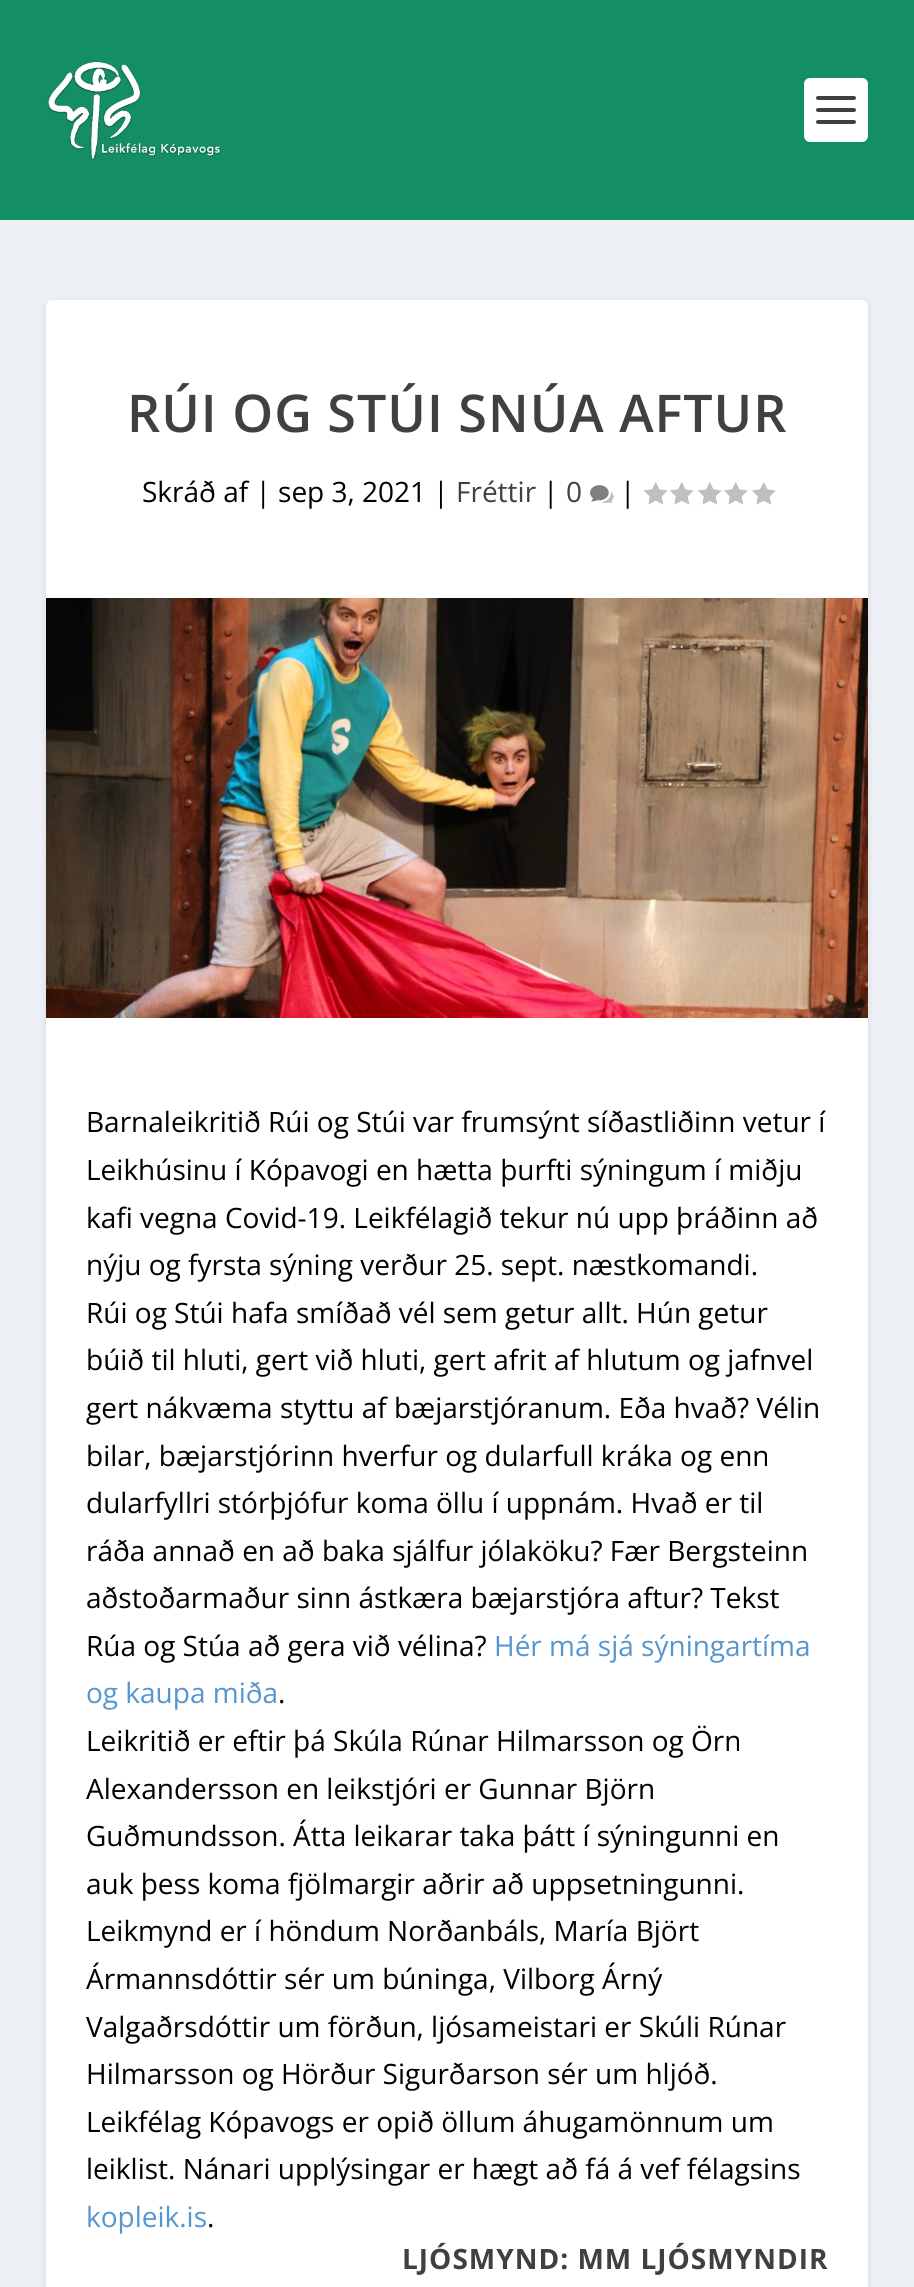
#include <cairo.h>
#include <math.h>
#include <stddef.h>

static cairo_t *ctx;

static void use_color(int r, int g, int b) {
    cairo_set_source_rgb(ctx, r / 255.0, g / 255.0, b / 255.0);
}

static void spaced_text(double x, double y, const char *s, double letter, double word) {
    cairo_move_to(ctx, x, y);
    while (*s) {
        char ch[5] = {0};
        int n = 0;
        do ch[n++] = *s++; while ((*s & 0xC0) == 0x80);
        cairo_show_text(ctx, ch);
        cairo_rel_move_to(ctx, letter + word * (*ch == ' '), 0);
    }
}

static void round_rect(double x, double y, double w, double h, double r) {
    cairo_new_sub_path(ctx);
    cairo_arc(ctx, x + w - r, y + h - r, r, 0, M_PI / 2);
    cairo_arc(ctx, x + r, y + h - r, r, M_PI / 2, M_PI);
    cairo_arc(ctx, x + r, y + r, r, M_PI, 1.5 * M_PI);
    cairo_arc(ctx, x + w - r, y + r, r, 1.5 * M_PI, 2 * M_PI);
    cairo_close_path(ctx);
}

static void shadow(double x, double y, double w, double h, double r, double blur, double alpha) {
    cairo_push_group_with_content(ctx, CAIRO_CONTENT_ALPHA);
    cairo_set_operator(ctx, CAIRO_OPERATOR_SOURCE);
    for (int i = 15; i >= -15 && fmin(w, h) + blur * i / 3 > 0; i -= 2) {
        double e = blur * i / 6;
        cairo_set_source_rgba(ctx, 0, 0, 0, alpha * erfc((i - 1) / 8.5) / 2);
        round_rect(x - e, y - e, w + 2 * e, h + 2 * e, fmax(0, fmin(r + e + blur * .6, fmin(w, h) / 2 + e)));
        cairo_fill(ctx);
    }
    cairo_pattern_t *soft = cairo_pop_group(ctx);
    cairo_mask(ctx, soft);
    cairo_pattern_destroy(soft);
}

static void picture(const char *path, double x, double y, double w, double h) {
    cairo_surface_t *image = cairo_image_surface_create_from_png(path);
    cairo_save(ctx);
    cairo_set_source_surface(ctx, image, x, y);
    cairo_rectangle(ctx, x, y, w, h);
    cairo_fill(ctx);
    cairo_restore(ctx);
    cairo_surface_destroy(image);
}

int main(void) {
    cairo_surface_t *surface = cairo_image_surface_create(CAIRO_FORMAT_RGB24, 914, 2287);
    ctx = cairo_create(surface);
    cairo_font_options_t *options = cairo_font_options_create();
    cairo_font_options_set_hint_metrics(options, CAIRO_HINT_METRICS_OFF);
    cairo_font_options_set_hint_style(options, CAIRO_HINT_STYLE_NONE);
    cairo_set_font_options(ctx, options);
    cairo_set_miter_limit(ctx, 4);
    use_color(236, 240, 245);
    cairo_paint(ctx);
    use_color(19, 143, 99);
    cairo_rectangle(ctx, 0, 0, 914, 220);
    cairo_fill(ctx);
    picture("img1.png", 47, 61, 174, 99);
    use_color(255, 255, 255);
    round_rect(804, 78, 64, 64, 6);
    cairo_fill(ctx);
    use_color(64, 64, 64);
    round_rect(816, 96, 40, 4, 2);
    cairo_fill(ctx);
    round_rect(816, 108, 40, 4, 2);
    cairo_fill(ctx);
    round_rect(816, 120, 40, 4, 2);
    cairo_fill(ctx);
    use_color(0, 0, 0);
    shadow(46, 302, 822, 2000, 6, 3, 0.1);
    use_color(255, 255, 255);
    round_rect(46, 300, 822, 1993, 6);
    cairo_fill(ctx);
    cairo_select_font_face(ctx, "Open Sans SemiBold", CAIRO_FONT_SLANT_NORMAL, CAIRO_FONT_WEIGHT_NORMAL);
    cairo_set_font_size(ctx, 52);
    use_color(64, 64, 64);
    spaced_text(127, 432, "RÚI OG STÚI SNÚA AFTUR", 1, 0);
    cairo_select_font_face(ctx, "Open Sans", CAIRO_FONT_SLANT_NORMAL, CAIRO_FONT_WEIGHT_NORMAL);
    cairo_set_font_size(ctx, 28);
    use_color(0, 0, 0);
    cairo_move_to(ctx, 142, 502);
    cairo_show_text(ctx, "Skráð af | sep 3, 2021 |");
    use_color(64, 64, 64);
    cairo_move_to(ctx, 456, 502);
    cairo_show_text(ctx, "Fréttir");
    use_color(0, 0, 0);
    cairo_move_to(ctx, 543, 502);
    cairo_show_text(ctx, "|");
    use_color(64, 64, 64);
    cairo_move_to(ctx, 566, 502);
    cairo_show_text(ctx, "0");
    picture("img2.png", 590, 485, 24, 18);
    use_color(0, 0, 0);
    cairo_move_to(ctx, 620, 502);
    cairo_show_text(ctx, "|");
    picture("img3.png", 644, 482, 24, 23);
    picture("img3.png", 670, 482, 24, 23);
    picture("img3.png", 698, 482, 24, 23);
    picture("img3.png", 724, 482, 24, 23);
    picture("img3.png", 752, 482, 24, 23);
    picture("img4.png", 46, 598, 822, 420);
    cairo_move_to(ctx, 86, 1132);
    cairo_show_text(ctx, "Barnaleikritið Rúi og Stúi var frumsýnt síðastliðinn vetur í");
    cairo_move_to(ctx, 86, 1180);
    cairo_show_text(ctx, "Leikhúsinu í Kópavogi en hætta þurfti sýningum í miðju");
    cairo_move_to(ctx, 86, 1228);
    cairo_show_text(ctx, "kafi vegna Covid-19. Leikfélagið tekur nú upp þráðinn að");
    cairo_move_to(ctx, 86, 1275);
    cairo_show_text(ctx, "nýju og fyrsta sýning verður 25. sept. næstkomandi.");
    cairo_move_to(ctx, 86, 1323);
    cairo_show_text(ctx, "Rúi og Stúi hafa smíðað vél sem getur allt. Hún getur");
    cairo_move_to(ctx, 86, 1370);
    cairo_show_text(ctx, "búið til hluti, gert við hluti, gert afrit af hlutum og jafnvel");
    cairo_move_to(ctx, 86, 1418);
    cairo_show_text(ctx, "gert nákvæma styttu af bæjarstjóranum. Eða hvað? Vélin");
    cairo_move_to(ctx, 86, 1466);
    cairo_show_text(ctx, "bilar, bæjarstjórinn hverfur og dularfull kráka og enn");
    cairo_move_to(ctx, 86, 1513);
    cairo_show_text(ctx, "dularfyllri stórþjófur koma öllu í uppnám. Hvað er til");
    cairo_move_to(ctx, 86, 1561);
    cairo_show_text(ctx, "ráða annað en að baka sjálfur jólaköku? Fær Bergsteinn");
    cairo_move_to(ctx, 86, 1608);
    cairo_show_text(ctx, "aðstoðarmaður sinn ástkæra bæjarstjóra aftur? Tekst");
    cairo_move_to(ctx, 86, 1656);
    cairo_show_text(ctx, "Rúa og Stúa að gera við vélina?");
    use_color(86, 150, 206);
    cairo_move_to(ctx, 494, 1656);
    cairo_show_text(ctx, "Hér má sjá sýningartíma");
    cairo_move_to(ctx, 86, 1703);
    cairo_show_text(ctx, "og kaupa miða");
    use_color(0, 0, 0);
    cairo_move_to(ctx, 278, 1703);
    cairo_show_text(ctx, ".");
    cairo_move_to(ctx, 86, 1751);
    cairo_show_text(ctx, "Leikritið er eftir þá Skúla Rúnar Hilmarsson og Örn");
    cairo_move_to(ctx, 86, 1799);
    cairo_show_text(ctx, "Alexandersson en leikstjóri er Gunnar Björn");
    cairo_move_to(ctx, 86, 1846);
    cairo_show_text(ctx, "Guðmundsson. Átta leikarar taka þátt í sýningunni en");
    cairo_move_to(ctx, 86, 1894);
    cairo_show_text(ctx, "auk þess koma fjölmargir aðrir að uppsetningunni.");
    cairo_move_to(ctx, 86, 1941);
    cairo_show_text(ctx, "Leikmynd er í höndum Norðanbáls, María Björt");
    cairo_move_to(ctx, 86, 1989);
    cairo_show_text(ctx, "Ármannsdóttir sér um búninga, Vilborg Árný");
    cairo_move_to(ctx, 86, 2037);
    cairo_show_text(ctx, "Valgaðrsdóttir um förðun, ljósameistari er Skúli Rúnar");
    cairo_move_to(ctx, 86, 2084);
    cairo_show_text(ctx, "Hilmarsson og Hörður Sigurðarson sér um hljóð.");
    cairo_move_to(ctx, 86, 2132);
    cairo_show_text(ctx, "Leikfélag Kópavogs er opið öllum áhugamönnum um");
    cairo_move_to(ctx, 86, 2179);
    cairo_show_text(ctx, "leiklist. Nánari upplýsingar er hægt að fá á vef félagsins");
    use_color(86, 150, 206);
    cairo_move_to(ctx, 86, 2227);
    cairo_show_text(ctx, "kopleik.is");
    use_color(0, 0, 0);
    cairo_move_to(ctx, 207, 2227);
    cairo_show_text(ctx, ".");
    cairo_select_font_face(ctx, "Open Sans", CAIRO_FONT_SLANT_NORMAL, CAIRO_FONT_WEIGHT_BOLD);
    use_color(64, 64, 64);
    spaced_text(402, 2269, "LJÓSMYND: MM LJÓSMYNDIR", 1, 0);
    cairo_surface_write_to_png(surface, "result.png");
    cairo_font_options_destroy(options);
    cairo_destroy(ctx);
    cairo_surface_destroy(surface);
    return 0;
}
